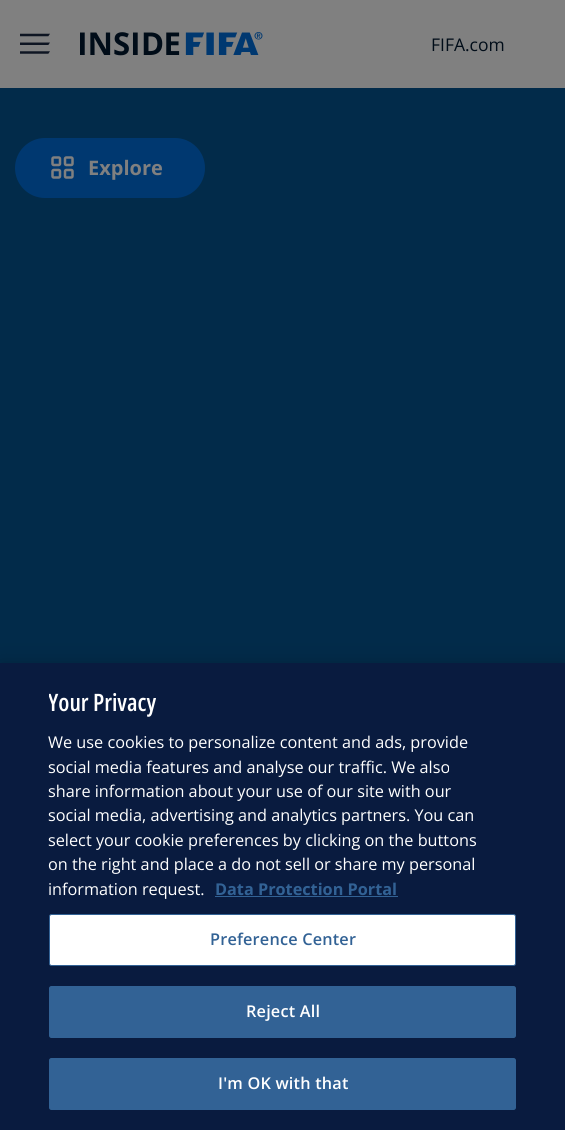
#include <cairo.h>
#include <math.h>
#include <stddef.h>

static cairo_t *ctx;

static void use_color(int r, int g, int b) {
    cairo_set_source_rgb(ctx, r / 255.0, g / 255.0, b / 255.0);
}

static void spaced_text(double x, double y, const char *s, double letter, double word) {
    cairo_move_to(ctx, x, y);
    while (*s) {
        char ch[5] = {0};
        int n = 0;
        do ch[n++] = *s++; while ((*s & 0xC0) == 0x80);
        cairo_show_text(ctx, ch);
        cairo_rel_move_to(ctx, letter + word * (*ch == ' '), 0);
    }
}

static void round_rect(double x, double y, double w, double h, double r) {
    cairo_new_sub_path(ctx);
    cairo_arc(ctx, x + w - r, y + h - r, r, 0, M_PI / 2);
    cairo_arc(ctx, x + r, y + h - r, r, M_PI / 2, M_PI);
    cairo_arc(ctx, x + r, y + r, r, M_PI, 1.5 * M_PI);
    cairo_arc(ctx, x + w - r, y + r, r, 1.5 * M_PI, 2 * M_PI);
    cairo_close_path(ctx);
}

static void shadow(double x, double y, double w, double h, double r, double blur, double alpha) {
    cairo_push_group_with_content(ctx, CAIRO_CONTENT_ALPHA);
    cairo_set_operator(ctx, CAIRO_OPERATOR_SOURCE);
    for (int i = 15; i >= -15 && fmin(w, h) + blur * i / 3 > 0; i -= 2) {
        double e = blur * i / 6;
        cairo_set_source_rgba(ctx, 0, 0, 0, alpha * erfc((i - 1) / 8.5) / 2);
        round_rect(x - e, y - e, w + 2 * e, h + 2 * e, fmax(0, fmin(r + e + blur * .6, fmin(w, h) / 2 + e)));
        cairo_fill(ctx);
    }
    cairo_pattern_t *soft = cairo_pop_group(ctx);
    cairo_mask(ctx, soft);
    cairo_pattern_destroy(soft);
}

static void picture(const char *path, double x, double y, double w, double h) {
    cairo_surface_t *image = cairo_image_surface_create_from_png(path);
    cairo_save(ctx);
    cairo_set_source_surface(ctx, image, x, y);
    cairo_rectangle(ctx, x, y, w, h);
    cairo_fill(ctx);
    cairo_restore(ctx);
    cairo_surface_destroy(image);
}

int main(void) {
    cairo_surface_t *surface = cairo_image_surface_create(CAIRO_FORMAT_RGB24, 565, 1130);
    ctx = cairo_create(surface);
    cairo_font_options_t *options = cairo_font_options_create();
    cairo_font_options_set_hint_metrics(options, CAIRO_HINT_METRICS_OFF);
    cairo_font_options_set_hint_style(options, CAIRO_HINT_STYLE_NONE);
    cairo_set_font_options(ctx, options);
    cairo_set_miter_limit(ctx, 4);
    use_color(128, 128, 128);
    cairo_paint(ctx);
    picture("img1.png", 20, 33, 30, 21);
    picture("img2.png", 80, 32, 183, 24);
    cairo_select_font_face(ctx, "Open Sans", CAIRO_FONT_SLANT_NORMAL, CAIRO_FONT_WEIGHT_NORMAL);
    cairo_set_font_size(ctx, 17.5);
    use_color(0, 12, 24);
    cairo_move_to(ctx, 431, 51);
    cairo_show_text(ctx, "FIFA.com");
    use_color(2, 43, 74);
    cairo_rectangle(ctx, 0, 88, 565, 575);
    cairo_fill(ctx);
    use_color(0, 56, 112);
    round_rect(15, 138, 190, 60, 30);
    cairo_fill(ctx);
    picture("img3.png", 51, 156, 23, 23);
    cairo_select_font_face(ctx, "Open Sans", CAIRO_FONT_SLANT_NORMAL, CAIRO_FONT_WEIGHT_BOLD);
    cairo_set_font_size(ctx, 20);
    use_color(128, 128, 128);
    cairo_move_to(ctx, 88, 175);
    cairo_show_text(ctx, "Explore");
    use_color(0, 0, 0);
    shadow(0, 663, 565, 467, 0, 11, 0.2);
    use_color(9, 27, 63);
    cairo_rectangle(ctx, 0, 663, 565, 467);
    cairo_fill(ctx);
    cairo_save(ctx);
    cairo_rectangle(ctx, 49, 688, 442, 213);
    cairo_clip(ctx);
    cairo_select_font_face(ctx, "Open Sans SemiBold", CAIRO_FONT_SLANT_NORMAL, CAIRO_FONT_WEIGHT_NORMAL);
    cairo_set_font_size(ctx, 24);
    use_color(255, 255, 255);
    cairo_move_to(ctx, 48, 711);
    cairo_show_text(ctx, "Your Privacy");
    cairo_restore(ctx);
    cairo_select_font_face(ctx, "Open Sans", CAIRO_FONT_SLANT_NORMAL, CAIRO_FONT_WEIGHT_NORMAL);
    cairo_set_font_size(ctx, 16.25);
    use_color(255, 255, 255);
    cairo_move_to(ctx, 48, 748);
    cairo_show_text(ctx, "We use cookies to personalize content and ads, provide");
    cairo_move_to(ctx, 48, 773);
    cairo_show_text(ctx, "social media features and analyse our traffic. We also");
    cairo_move_to(ctx, 48, 797);
    cairo_show_text(ctx, "share information about your use of our site with our");
    cairo_move_to(ctx, 48, 821);
    cairo_show_text(ctx, "social media, advertising and analytics partners. You can");
    cairo_move_to(ctx, 48, 846);
    cairo_show_text(ctx, "select your cookie preferences by clicking on the buttons");
    cairo_move_to(ctx, 48, 870);
    cairo_show_text(ctx, "on the right and place a do not sell or share my personal");
    cairo_move_to(ctx, 48, 895);
    cairo_show_text(ctx, "information request.");
    cairo_select_font_face(ctx, "Open Sans", CAIRO_FONT_SLANT_NORMAL, CAIRO_FONT_WEIGHT_BOLD);
    use_color(50, 98, 149);
    cairo_move_to(ctx, 215, 895);
    cairo_show_text(ctx, "Data Protection Portal");
    cairo_rectangle(ctx, 215, 896, 183, 1);
    cairo_fill(ctx);
    use_color(255, 255, 255);
    round_rect(49.5, 914.5, 466, 51, 2);
    cairo_fill_preserve(ctx);
    use_color(50, 98, 149);
    cairo_set_line_width(ctx, 1);
    cairo_stroke(ctx);
    cairo_select_font_face(ctx, "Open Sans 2 SemiBold", CAIRO_FONT_SLANT_NORMAL, CAIRO_FONT_WEIGHT_NORMAL);
    spaced_text(210, 945, "Preference Center", 0.2, 0);
    round_rect(49.5, 986.5, 466, 51, 2);
    cairo_fill_preserve(ctx);
    cairo_stroke(ctx);
    use_color(255, 255, 255);
    spaced_text(246, 1017, "Reject All", 0.2, 0);
    use_color(50, 98, 149);
    round_rect(49.5, 1058.5, 466, 51, 2);
    cairo_fill_preserve(ctx);
    cairo_stroke(ctx);
    use_color(255, 255, 255);
    spaced_text(218, 1089, "I'm OK with that", 0.2, 0);
    cairo_surface_write_to_png(surface, "result.png");
    cairo_font_options_destroy(options);
    cairo_destroy(ctx);
    cairo_surface_destroy(surface);
    return 0;
}
